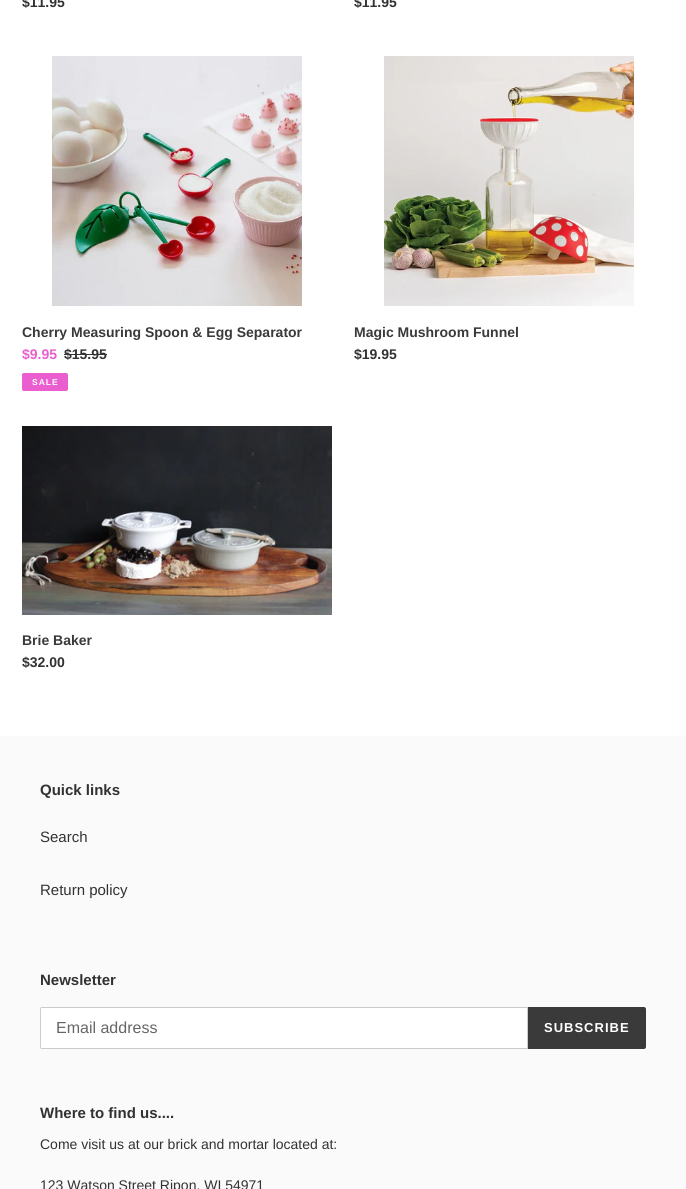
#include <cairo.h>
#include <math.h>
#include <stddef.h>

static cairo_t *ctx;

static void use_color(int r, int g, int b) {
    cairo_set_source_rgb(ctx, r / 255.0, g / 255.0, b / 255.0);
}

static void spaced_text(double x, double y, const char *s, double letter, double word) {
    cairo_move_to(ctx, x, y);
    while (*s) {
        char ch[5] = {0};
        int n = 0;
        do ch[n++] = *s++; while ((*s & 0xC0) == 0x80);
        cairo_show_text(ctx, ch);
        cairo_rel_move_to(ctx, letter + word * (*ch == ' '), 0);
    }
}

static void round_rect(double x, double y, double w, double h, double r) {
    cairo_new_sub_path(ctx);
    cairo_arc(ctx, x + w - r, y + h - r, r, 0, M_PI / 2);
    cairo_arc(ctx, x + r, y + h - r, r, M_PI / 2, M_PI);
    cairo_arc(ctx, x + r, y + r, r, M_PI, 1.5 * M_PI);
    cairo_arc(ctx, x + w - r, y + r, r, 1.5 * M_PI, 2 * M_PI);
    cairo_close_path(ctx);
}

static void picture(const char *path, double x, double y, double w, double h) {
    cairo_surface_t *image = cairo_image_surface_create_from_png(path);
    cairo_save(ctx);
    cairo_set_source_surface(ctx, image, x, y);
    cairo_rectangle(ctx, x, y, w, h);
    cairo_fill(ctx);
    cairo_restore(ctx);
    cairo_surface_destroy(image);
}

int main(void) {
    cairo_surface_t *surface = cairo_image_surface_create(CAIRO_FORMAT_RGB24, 686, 1189);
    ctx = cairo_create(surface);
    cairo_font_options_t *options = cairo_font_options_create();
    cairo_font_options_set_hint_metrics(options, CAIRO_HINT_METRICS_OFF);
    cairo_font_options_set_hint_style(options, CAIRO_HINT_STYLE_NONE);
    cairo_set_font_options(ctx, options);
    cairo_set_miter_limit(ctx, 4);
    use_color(255, 255, 255);
    cairo_paint(ctx);
    cairo_select_font_face(ctx, "Liberation Sans", CAIRO_FONT_SLANT_NORMAL, CAIRO_FONT_WEIGHT_BOLD);
    cairo_set_font_size(ctx, 14);
    use_color(51, 50, 50);
    cairo_move_to(ctx, 22, 7);
    cairo_show_text(ctx, "$11.95");
    cairo_move_to(ctx, 354, 7);
    cairo_show_text(ctx, "$11.95");
    picture("img1.png", 52, 56, 250, 250);
    use_color(58, 58, 58);
    cairo_move_to(ctx, 22, 337);
    cairo_show_text(ctx, "Cherry Measuring Spoon & Egg Separator");
    use_color(234, 94, 207);
    cairo_move_to(ctx, 22, 359);
    cairo_show_text(ctx, "$9.95");
    use_color(51, 50, 50);
    cairo_move_to(ctx, 64, 359);
    cairo_show_text(ctx, "$15.95");
    cairo_rectangle(ctx, 64, 354, 43, 1);
    cairo_fill(ctx);
    use_color(234, 94, 207);
    round_rect(22.5, 373.5, 45, 17, 1.5);
    cairo_fill_preserve(ctx);
    cairo_set_line_width(ctx, 1);
    cairo_stroke(ctx);
    cairo_set_font_size(ctx, 8.5);
    use_color(255, 255, 255);
    spaced_text(32, 385, "SALE", 1, 0);
    picture("img2.png", 384, 56, 250, 250);
    cairo_set_font_size(ctx, 14);
    use_color(58, 58, 58);
    cairo_move_to(ctx, 354, 337);
    cairo_show_text(ctx, "Magic Mushroom Funnel");
    use_color(51, 50, 50);
    cairo_move_to(ctx, 354, 359);
    cairo_show_text(ctx, "$19.95");
    picture("img3.png", 22, 426, 310, 189);
    use_color(58, 58, 58);
    cairo_move_to(ctx, 22, 645);
    cairo_show_text(ctx, "Brie Baker");
    use_color(51, 50, 50);
    cairo_move_to(ctx, 22, 667);
    cairo_show_text(ctx, "$32.00");
    use_color(250, 250, 250);
    cairo_rectangle(ctx, 0, 736, 686, 453);
    cairo_fill(ctx);
    cairo_set_font_size(ctx, 15);
    use_color(51, 50, 50);
    cairo_move_to(ctx, 40, 795);
    cairo_show_text(ctx, "Quick links");
    cairo_select_font_face(ctx, "Liberation Sans", CAIRO_FONT_SLANT_NORMAL, CAIRO_FONT_WEIGHT_NORMAL);
    cairo_move_to(ctx, 40, 842);
    cairo_show_text(ctx, "Search");
    cairo_move_to(ctx, 40, 895);
    cairo_show_text(ctx, "Return policy");
    cairo_select_font_face(ctx, "Liberation Sans", CAIRO_FONT_SLANT_NORMAL, CAIRO_FONT_WEIGHT_BOLD);
    cairo_move_to(ctx, 40, 985);
    cairo_show_text(ctx, "Newsletter");
    use_color(255, 255, 255);
    cairo_new_path(ctx);
    cairo_move_to(ctx, 42, 1007.5);
    cairo_line_to(ctx, 527.5, 1007.5);
    cairo_line_to(ctx, 527.5, 1048.5);
    cairo_line_to(ctx, 42, 1048.5);
    cairo_curve_to(ctx, 41, 1048.5, 40.5, 1048, 40.5, 1047);
    cairo_line_to(ctx, 40.5, 1009);
    cairo_curve_to(ctx, 40.5, 1008, 41, 1007.5, 42, 1007.5);
    cairo_close_path(ctx);
    cairo_fill_preserve(ctx);
    use_color(204, 204, 204);
    cairo_stroke(ctx);
    cairo_select_font_face(ctx, "Liberation Sans", CAIRO_FONT_SLANT_NORMAL, CAIRO_FONT_WEIGHT_NORMAL);
    cairo_set_font_size(ctx, 16);
    use_color(102, 102, 102);
    cairo_move_to(ctx, 56, 1033);
    cairo_show_text(ctx, "Email address");
    use_color(58, 58, 58);
    cairo_new_path(ctx);
    cairo_move_to(ctx, 528, 1007);
    cairo_line_to(ctx, 644, 1007);
    cairo_curve_to(ctx, 645, 1007, 646, 1008, 646, 1009);
    cairo_line_to(ctx, 646, 1047);
    cairo_curve_to(ctx, 646, 1048, 645, 1049, 644, 1049);
    cairo_line_to(ctx, 528, 1049);
    cairo_close_path(ctx);
    cairo_fill(ctx);
    cairo_select_font_face(ctx, "Liberation Sans", CAIRO_FONT_SLANT_NORMAL, CAIRO_FONT_WEIGHT_BOLD);
    cairo_set_font_size(ctx, 13);
    use_color(255, 255, 255);
    spaced_text(544, 1032, "SUBSCRIBE", 1, 0);
    cairo_set_font_size(ctx, 15);
    use_color(51, 50, 50);
    cairo_move_to(ctx, 40, 1118);
    cairo_show_text(ctx, "Where to find us....");
    cairo_select_font_face(ctx, "Liberation Sans", CAIRO_FONT_SLANT_NORMAL, CAIRO_FONT_WEIGHT_NORMAL);
    cairo_set_font_size(ctx, 14);
    cairo_move_to(ctx, 40, 1149);
    cairo_show_text(ctx, "Come visit us at our brick and mortar located at:");
    cairo_move_to(ctx, 40, 1190);
    cairo_show_text(ctx, "123 Watson Street Ripon, WI 54971");
    cairo_surface_write_to_png(surface, "result.png");
    cairo_font_options_destroy(options);
    cairo_destroy(ctx);
    cairo_surface_destroy(surface);
    return 0;
}
